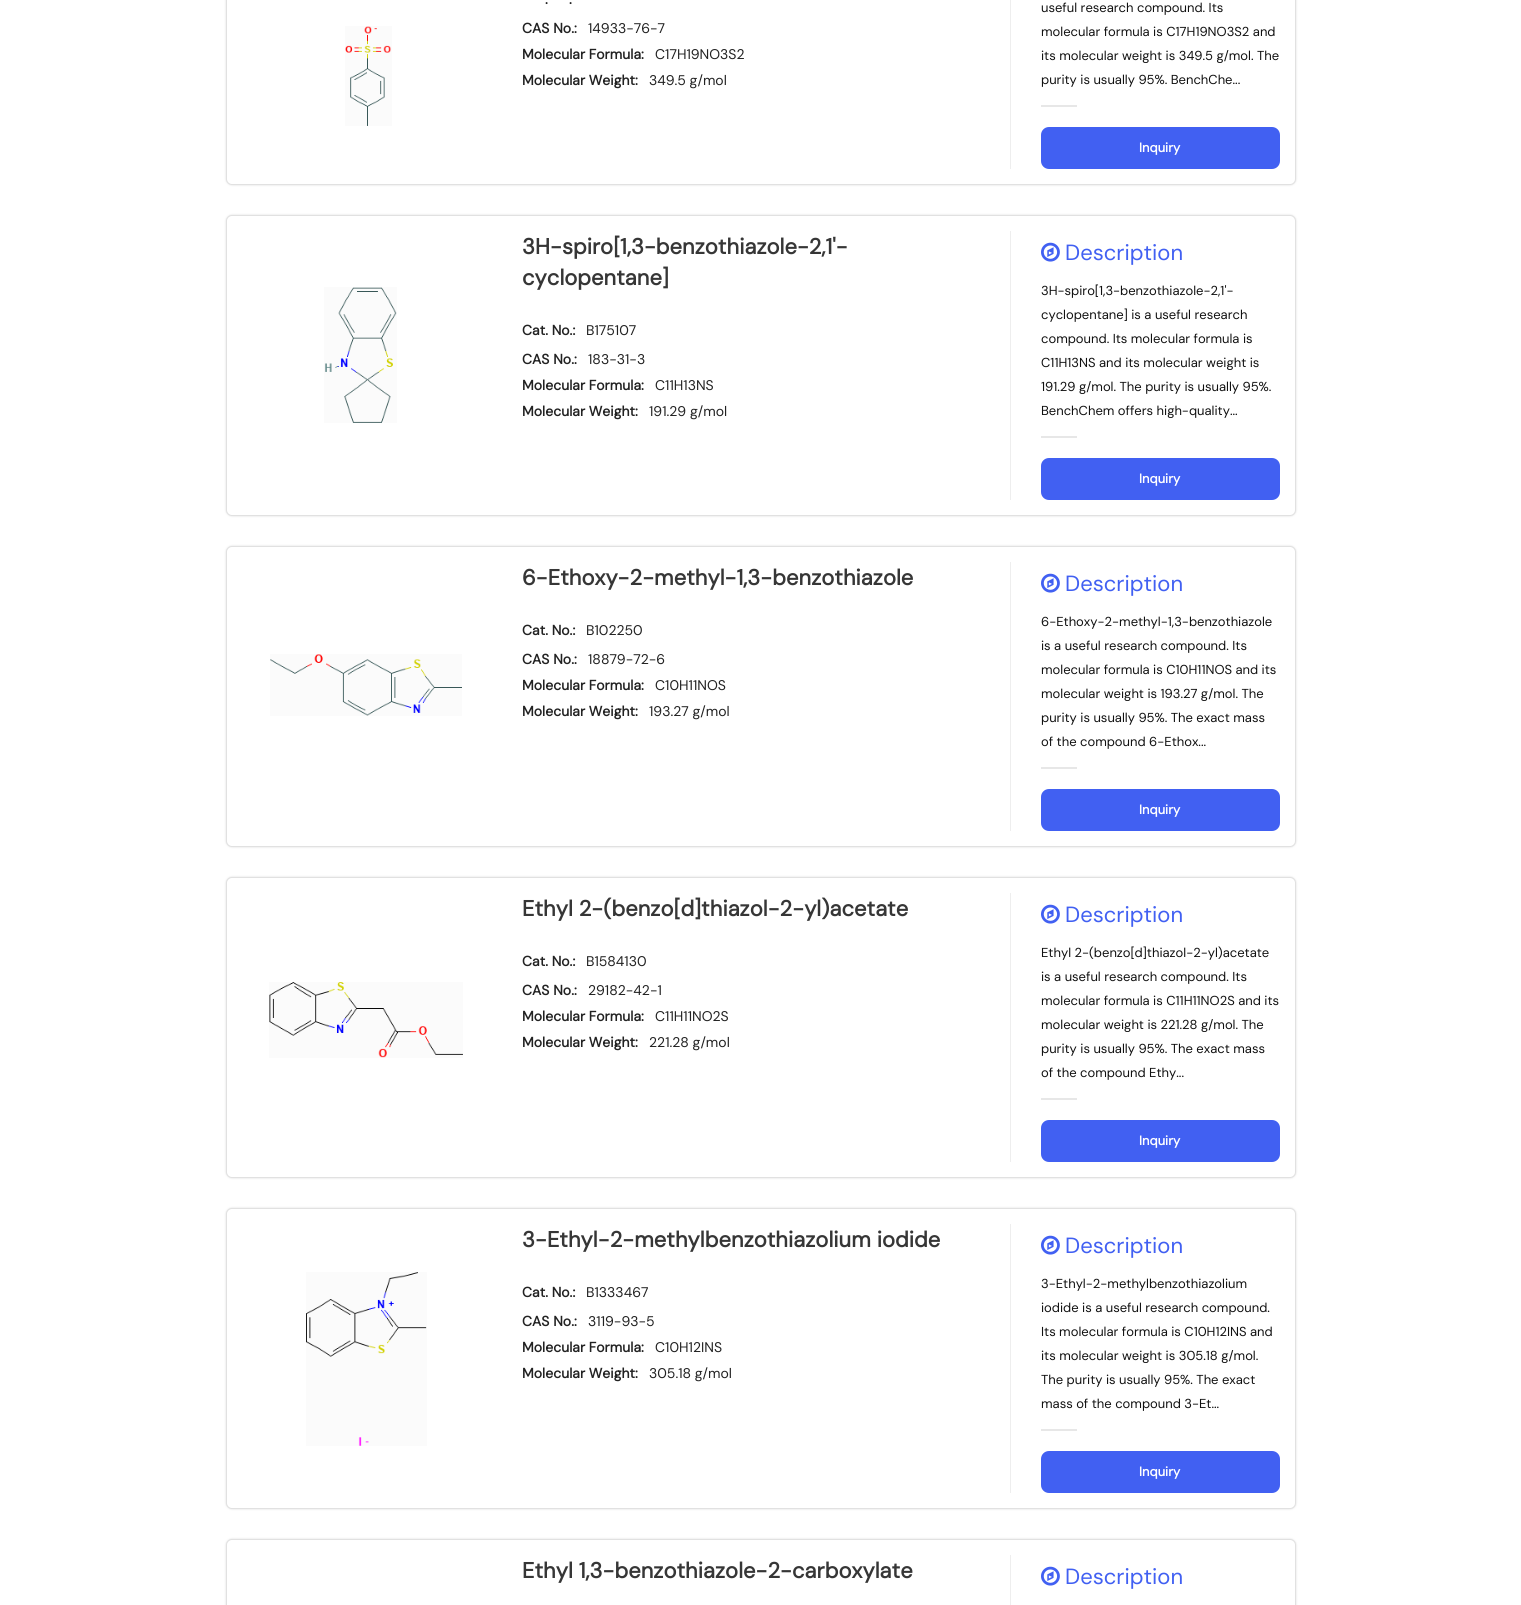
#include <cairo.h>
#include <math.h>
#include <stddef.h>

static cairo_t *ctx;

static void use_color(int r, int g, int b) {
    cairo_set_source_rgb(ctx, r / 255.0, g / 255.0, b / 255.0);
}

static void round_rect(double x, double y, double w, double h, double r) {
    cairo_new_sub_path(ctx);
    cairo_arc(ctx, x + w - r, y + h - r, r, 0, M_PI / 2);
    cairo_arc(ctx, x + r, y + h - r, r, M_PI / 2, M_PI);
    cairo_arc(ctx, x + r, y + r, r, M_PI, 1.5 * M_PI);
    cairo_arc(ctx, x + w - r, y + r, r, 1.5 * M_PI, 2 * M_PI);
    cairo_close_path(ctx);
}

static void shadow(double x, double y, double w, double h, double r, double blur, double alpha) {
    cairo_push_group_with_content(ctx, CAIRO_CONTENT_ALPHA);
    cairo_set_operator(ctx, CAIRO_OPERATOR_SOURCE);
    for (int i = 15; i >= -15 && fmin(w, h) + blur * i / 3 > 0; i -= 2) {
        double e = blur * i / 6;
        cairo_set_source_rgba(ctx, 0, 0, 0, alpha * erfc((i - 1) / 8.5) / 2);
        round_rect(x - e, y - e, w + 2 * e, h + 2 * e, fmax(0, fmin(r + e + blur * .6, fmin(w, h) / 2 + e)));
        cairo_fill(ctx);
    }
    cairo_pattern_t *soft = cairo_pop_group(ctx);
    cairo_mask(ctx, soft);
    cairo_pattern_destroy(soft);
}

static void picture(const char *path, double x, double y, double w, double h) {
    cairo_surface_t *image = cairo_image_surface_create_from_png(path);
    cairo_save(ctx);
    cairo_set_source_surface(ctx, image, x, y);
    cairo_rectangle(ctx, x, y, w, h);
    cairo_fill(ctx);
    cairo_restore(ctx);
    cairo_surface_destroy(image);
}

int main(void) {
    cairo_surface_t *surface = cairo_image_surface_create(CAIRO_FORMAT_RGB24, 1521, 1605);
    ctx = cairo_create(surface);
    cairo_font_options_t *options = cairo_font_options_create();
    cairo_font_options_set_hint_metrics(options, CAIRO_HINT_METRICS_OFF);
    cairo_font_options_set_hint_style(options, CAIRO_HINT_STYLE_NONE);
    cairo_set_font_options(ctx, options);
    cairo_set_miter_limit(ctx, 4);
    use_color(255, 255, 255);
    cairo_paint(ctx);
    use_color(221, 221, 221);
    shadow(226, -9, 1070, 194, 6, 1, 1);
    use_color(255, 255, 255);
    round_rect(226.5, -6.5, 1069, 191, 5.5);
    cairo_fill_preserve(ctx);
    use_color(225, 225, 225);
    cairo_set_line_width(ctx, 1);
    cairo_stroke(ctx);
    picture("img1.png", 345, 26, 47, 100);
    cairo_select_font_face(ctx, "DM Sans", CAIRO_FONT_SLANT_NORMAL, CAIRO_FONT_WEIGHT_BOLD);
    cairo_set_font_size(ctx, 14);
    use_color(34, 34, 34);
    cairo_move_to(ctx, 545, 4);
    cairo_show_text(ctx, ".");
    cairo_move_to(ctx, 569, 4);
    cairo_show_text(ctx, ".");
    cairo_move_to(ctx, 522, 33);
    cairo_show_text(ctx, "CAS No.:");
    cairo_select_font_face(ctx, "DM Sans", CAIRO_FONT_SLANT_NORMAL, CAIRO_FONT_WEIGHT_NORMAL);
    cairo_move_to(ctx, 588, 33);
    cairo_show_text(ctx, "14933-76-7");
    cairo_select_font_face(ctx, "DM Sans", CAIRO_FONT_SLANT_NORMAL, CAIRO_FONT_WEIGHT_BOLD);
    cairo_move_to(ctx, 522, 59);
    cairo_show_text(ctx, "Molecular Formula:");
    cairo_select_font_face(ctx, "DM Sans", CAIRO_FONT_SLANT_NORMAL, CAIRO_FONT_WEIGHT_NORMAL);
    cairo_move_to(ctx, 655, 59);
    cairo_show_text(ctx, "C17H19NO3S2");
    cairo_select_font_face(ctx, "DM Sans", CAIRO_FONT_SLANT_NORMAL, CAIRO_FONT_WEIGHT_BOLD);
    cairo_move_to(ctx, 522, 85);
    cairo_show_text(ctx, "Molecular Weight:");
    cairo_select_font_face(ctx, "DM Sans", CAIRO_FONT_SLANT_NORMAL, CAIRO_FONT_WEIGHT_NORMAL);
    cairo_move_to(ctx, 649, 85);
    cairo_show_text(ctx, "349.5 g/mol");
    use_color(238, 238, 238);
    cairo_rectangle(ctx, 1010, 0, 1, 169);
    cairo_fill(ctx);
    cairo_set_font_size(ctx, 13);
    use_color(17, 17, 17);
    cairo_move_to(ctx, 1041, 12);
    cairo_show_text(ctx, "useful research compound. Its");
    cairo_move_to(ctx, 1041, 36);
    cairo_show_text(ctx, "molecular formula is C17H19NO3S2 and");
    cairo_move_to(ctx, 1041, 60);
    cairo_show_text(ctx, "its molecular weight is 349.5 g/mol. The");
    cairo_move_to(ctx, 1041, 84);
    cairo_show_text(ctx, "purity is usually 95%. BenchChe...");
    use_color(231, 231, 231);
    cairo_rectangle(ctx, 1041, 105, 36, 2);
    cairo_fill(ctx);
    use_color(65, 96, 242);
    round_rect(1041, 127, 239, 42, 8);
    cairo_fill(ctx);
    cairo_select_font_face(ctx, "DM Sans", CAIRO_FONT_SLANT_NORMAL, CAIRO_FONT_WEIGHT_BOLD);
    use_color(255, 255, 255);
    cairo_move_to(ctx, 1139, 152);
    cairo_show_text(ctx, "Inquiry");
    use_color(221, 221, 221);
    shadow(226, 215, 1070, 301, 6, 1, 1);
    use_color(255, 255, 255);
    round_rect(226.5, 215.5, 1069, 300, 5.5);
    cairo_fill_preserve(ctx);
    use_color(225, 225, 225);
    cairo_stroke(ctx);
    picture("img2.png", 324, 287, 73, 136);
    cairo_set_font_size(ctx, 22);
    use_color(54, 54, 54);
    cairo_move_to(ctx, 522, 254);
    cairo_show_text(ctx, "3H-spiro[1,3-benzothiazole-2,1'-");
    cairo_move_to(ctx, 522, 285);
    cairo_show_text(ctx, "cyclopentane]");
    cairo_set_font_size(ctx, 14);
    use_color(34, 34, 34);
    cairo_move_to(ctx, 522, 335);
    cairo_show_text(ctx, "Cat. No.:");
    cairo_select_font_face(ctx, "DM Sans", CAIRO_FONT_SLANT_NORMAL, CAIRO_FONT_WEIGHT_NORMAL);
    cairo_move_to(ctx, 586, 335);
    cairo_show_text(ctx, "B175107");
    cairo_select_font_face(ctx, "DM Sans", CAIRO_FONT_SLANT_NORMAL, CAIRO_FONT_WEIGHT_BOLD);
    cairo_move_to(ctx, 522, 364);
    cairo_show_text(ctx, "CAS No.:");
    cairo_select_font_face(ctx, "DM Sans", CAIRO_FONT_SLANT_NORMAL, CAIRO_FONT_WEIGHT_NORMAL);
    cairo_move_to(ctx, 588, 364);
    cairo_show_text(ctx, "183-31-3");
    cairo_select_font_face(ctx, "DM Sans", CAIRO_FONT_SLANT_NORMAL, CAIRO_FONT_WEIGHT_BOLD);
    cairo_move_to(ctx, 522, 390);
    cairo_show_text(ctx, "Molecular Formula:");
    cairo_select_font_face(ctx, "DM Sans", CAIRO_FONT_SLANT_NORMAL, CAIRO_FONT_WEIGHT_NORMAL);
    cairo_move_to(ctx, 655, 390);
    cairo_show_text(ctx, "C11H13NS");
    cairo_select_font_face(ctx, "DM Sans", CAIRO_FONT_SLANT_NORMAL, CAIRO_FONT_WEIGHT_BOLD);
    cairo_move_to(ctx, 522, 416);
    cairo_show_text(ctx, "Molecular Weight:");
    cairo_select_font_face(ctx, "DM Sans", CAIRO_FONT_SLANT_NORMAL, CAIRO_FONT_WEIGHT_NORMAL);
    cairo_move_to(ctx, 649, 416);
    cairo_show_text(ctx, "191.29 g/mol");
    use_color(238, 238, 238);
    cairo_rectangle(ctx, 1010, 231, 1, 269);
    cairo_fill(ctx);
    picture("img3.png", 1041, 242, 19, 20);
    cairo_set_font_size(ctx, 22);
    use_color(65, 96, 242);
    cairo_move_to(ctx, 1065, 260);
    cairo_show_text(ctx, "Description");
    cairo_set_font_size(ctx, 13);
    use_color(17, 17, 17);
    cairo_move_to(ctx, 1041, 295);
    cairo_show_text(ctx, "3H-spiro[1,3-benzothiazole-2,1'-");
    cairo_move_to(ctx, 1041, 319);
    cairo_show_text(ctx, "cyclopentane] is a useful research");
    cairo_move_to(ctx, 1041, 343);
    cairo_show_text(ctx, "compound. Its molecular formula is");
    cairo_move_to(ctx, 1041, 367);
    cairo_show_text(ctx, "C11H13NS and its molecular weight is");
    cairo_move_to(ctx, 1041, 391);
    cairo_show_text(ctx, "191.29 g/mol. The purity is usually 95%.");
    cairo_move_to(ctx, 1041, 415);
    cairo_show_text(ctx, "BenchChem offers high-quality...");
    use_color(231, 231, 231);
    cairo_rectangle(ctx, 1041, 436, 36, 2);
    cairo_fill(ctx);
    use_color(65, 96, 242);
    round_rect(1041, 458, 239, 42, 8);
    cairo_fill(ctx);
    cairo_select_font_face(ctx, "DM Sans", CAIRO_FONT_SLANT_NORMAL, CAIRO_FONT_WEIGHT_BOLD);
    use_color(255, 255, 255);
    cairo_move_to(ctx, 1139, 483);
    cairo_show_text(ctx, "Inquiry");
    use_color(221, 221, 221);
    shadow(226, 546, 1070, 301, 6, 1, 1);
    use_color(255, 255, 255);
    round_rect(226.5, 546.5, 1069, 300, 5.5);
    cairo_fill_preserve(ctx);
    use_color(225, 225, 225);
    cairo_stroke(ctx);
    picture("img4.png", 270, 654, 192, 62);
    cairo_set_font_size(ctx, 22);
    use_color(54, 54, 54);
    cairo_move_to(ctx, 522, 585);
    cairo_show_text(ctx, "6-Ethoxy-2-methyl-1,3-benzothiazole");
    cairo_set_font_size(ctx, 14);
    use_color(34, 34, 34);
    cairo_move_to(ctx, 522, 635);
    cairo_show_text(ctx, "Cat. No.:");
    cairo_select_font_face(ctx, "DM Sans", CAIRO_FONT_SLANT_NORMAL, CAIRO_FONT_WEIGHT_NORMAL);
    cairo_move_to(ctx, 586, 635);
    cairo_show_text(ctx, "B102250");
    cairo_select_font_face(ctx, "DM Sans", CAIRO_FONT_SLANT_NORMAL, CAIRO_FONT_WEIGHT_BOLD);
    cairo_move_to(ctx, 522, 664);
    cairo_show_text(ctx, "CAS No.:");
    cairo_select_font_face(ctx, "DM Sans", CAIRO_FONT_SLANT_NORMAL, CAIRO_FONT_WEIGHT_NORMAL);
    cairo_move_to(ctx, 588, 664);
    cairo_show_text(ctx, "18879-72-6");
    cairo_select_font_face(ctx, "DM Sans", CAIRO_FONT_SLANT_NORMAL, CAIRO_FONT_WEIGHT_BOLD);
    cairo_move_to(ctx, 522, 690);
    cairo_show_text(ctx, "Molecular Formula:");
    cairo_select_font_face(ctx, "DM Sans", CAIRO_FONT_SLANT_NORMAL, CAIRO_FONT_WEIGHT_NORMAL);
    cairo_move_to(ctx, 655, 690);
    cairo_show_text(ctx, "C10H11NOS");
    cairo_select_font_face(ctx, "DM Sans", CAIRO_FONT_SLANT_NORMAL, CAIRO_FONT_WEIGHT_BOLD);
    cairo_move_to(ctx, 522, 716);
    cairo_show_text(ctx, "Molecular Weight:");
    cairo_select_font_face(ctx, "DM Sans", CAIRO_FONT_SLANT_NORMAL, CAIRO_FONT_WEIGHT_NORMAL);
    cairo_move_to(ctx, 649, 716);
    cairo_show_text(ctx, "193.27 g/mol");
    use_color(238, 238, 238);
    cairo_rectangle(ctx, 1010, 562, 1, 269);
    cairo_fill(ctx);
    picture("img3.png", 1041, 573, 19, 20);
    cairo_set_font_size(ctx, 22);
    use_color(65, 96, 242);
    cairo_move_to(ctx, 1065, 591);
    cairo_show_text(ctx, "Description");
    cairo_set_font_size(ctx, 13);
    use_color(17, 17, 17);
    cairo_move_to(ctx, 1041, 626);
    cairo_show_text(ctx, "6-Ethoxy-2-methyl-1,3-benzothiazole");
    cairo_move_to(ctx, 1041, 650);
    cairo_show_text(ctx, "is a useful research compound. Its");
    cairo_move_to(ctx, 1041, 674);
    cairo_show_text(ctx, "molecular formula is C10H11NOS and its");
    cairo_move_to(ctx, 1041, 698);
    cairo_show_text(ctx, "molecular weight is 193.27 g/mol. The");
    cairo_move_to(ctx, 1041, 722);
    cairo_show_text(ctx, "purity is usually 95%. The exact mass");
    cairo_move_to(ctx, 1041, 746);
    cairo_show_text(ctx, "of the compound 6-Ethox...");
    use_color(231, 231, 231);
    cairo_rectangle(ctx, 1041, 767, 36, 2);
    cairo_fill(ctx);
    use_color(65, 96, 242);
    round_rect(1041, 789, 239, 42, 8);
    cairo_fill(ctx);
    cairo_select_font_face(ctx, "DM Sans", CAIRO_FONT_SLANT_NORMAL, CAIRO_FONT_WEIGHT_BOLD);
    use_color(255, 255, 255);
    cairo_move_to(ctx, 1139, 814);
    cairo_show_text(ctx, "Inquiry");
    use_color(221, 221, 221);
    shadow(226, 877, 1070, 301, 6, 1, 1);
    use_color(255, 255, 255);
    round_rect(226.5, 877.5, 1069, 300, 5.5);
    cairo_fill_preserve(ctx);
    use_color(225, 225, 225);
    cairo_stroke(ctx);
    picture("img5.png", 269, 982, 194, 76);
    cairo_set_font_size(ctx, 22);
    use_color(54, 54, 54);
    cairo_move_to(ctx, 522, 916);
    cairo_show_text(ctx, "Ethyl 2-(benzo[d]thiazol-2-yl)acetate");
    cairo_set_font_size(ctx, 14);
    use_color(34, 34, 34);
    cairo_move_to(ctx, 522, 966);
    cairo_show_text(ctx, "Cat. No.:");
    cairo_select_font_face(ctx, "DM Sans", CAIRO_FONT_SLANT_NORMAL, CAIRO_FONT_WEIGHT_NORMAL);
    cairo_move_to(ctx, 586, 966);
    cairo_show_text(ctx, "B1584130");
    cairo_select_font_face(ctx, "DM Sans", CAIRO_FONT_SLANT_NORMAL, CAIRO_FONT_WEIGHT_BOLD);
    cairo_move_to(ctx, 522, 995);
    cairo_show_text(ctx, "CAS No.:");
    cairo_select_font_face(ctx, "DM Sans", CAIRO_FONT_SLANT_NORMAL, CAIRO_FONT_WEIGHT_NORMAL);
    cairo_move_to(ctx, 588, 995);
    cairo_show_text(ctx, "29182-42-1");
    cairo_select_font_face(ctx, "DM Sans", CAIRO_FONT_SLANT_NORMAL, CAIRO_FONT_WEIGHT_BOLD);
    cairo_move_to(ctx, 522, 1021);
    cairo_show_text(ctx, "Molecular Formula:");
    cairo_select_font_face(ctx, "DM Sans", CAIRO_FONT_SLANT_NORMAL, CAIRO_FONT_WEIGHT_NORMAL);
    cairo_move_to(ctx, 655, 1021);
    cairo_show_text(ctx, "C11H11NO2S");
    cairo_select_font_face(ctx, "DM Sans", CAIRO_FONT_SLANT_NORMAL, CAIRO_FONT_WEIGHT_BOLD);
    cairo_move_to(ctx, 522, 1047);
    cairo_show_text(ctx, "Molecular Weight:");
    cairo_select_font_face(ctx, "DM Sans", CAIRO_FONT_SLANT_NORMAL, CAIRO_FONT_WEIGHT_NORMAL);
    cairo_move_to(ctx, 649, 1047);
    cairo_show_text(ctx, "221.28 g/mol");
    use_color(238, 238, 238);
    cairo_rectangle(ctx, 1010, 893, 1, 269);
    cairo_fill(ctx);
    picture("img3.png", 1041, 904, 19, 20);
    cairo_set_font_size(ctx, 22);
    use_color(65, 96, 242);
    cairo_move_to(ctx, 1065, 922);
    cairo_show_text(ctx, "Description");
    cairo_set_font_size(ctx, 13);
    use_color(17, 17, 17);
    cairo_move_to(ctx, 1041, 957);
    cairo_show_text(ctx, "Ethyl 2-(benzo[d]thiazol-2-yl)acetate");
    cairo_move_to(ctx, 1041, 981);
    cairo_show_text(ctx, "is a useful research compound. Its");
    cairo_move_to(ctx, 1041, 1005);
    cairo_show_text(ctx, "molecular formula is C11H11NO2S and its");
    cairo_move_to(ctx, 1041, 1029);
    cairo_show_text(ctx, "molecular weight is 221.28 g/mol. The");
    cairo_move_to(ctx, 1041, 1053);
    cairo_show_text(ctx, "purity is usually 95%. The exact mass");
    cairo_move_to(ctx, 1041, 1077);
    cairo_show_text(ctx, "of the compound Ethy...");
    use_color(231, 231, 231);
    cairo_rectangle(ctx, 1041, 1098, 36, 2);
    cairo_fill(ctx);
    use_color(65, 96, 242);
    round_rect(1041, 1120, 239, 42, 8);
    cairo_fill(ctx);
    cairo_select_font_face(ctx, "DM Sans", CAIRO_FONT_SLANT_NORMAL, CAIRO_FONT_WEIGHT_BOLD);
    use_color(255, 255, 255);
    cairo_move_to(ctx, 1139, 1145);
    cairo_show_text(ctx, "Inquiry");
    use_color(221, 221, 221);
    shadow(226, 1208, 1070, 301, 6, 1, 1);
    use_color(255, 255, 255);
    round_rect(226.5, 1208.5, 1069, 300, 5.5);
    cairo_fill_preserve(ctx);
    use_color(225, 225, 225);
    cairo_stroke(ctx);
    picture("img6.png", 306, 1272, 121, 174);
    cairo_set_font_size(ctx, 22);
    use_color(54, 54, 54);
    cairo_move_to(ctx, 522, 1247);
    cairo_show_text(ctx, "3-Ethyl-2-methylbenzothiazolium iodide");
    cairo_set_font_size(ctx, 14);
    use_color(34, 34, 34);
    cairo_move_to(ctx, 522, 1297);
    cairo_show_text(ctx, "Cat. No.:");
    cairo_select_font_face(ctx, "DM Sans", CAIRO_FONT_SLANT_NORMAL, CAIRO_FONT_WEIGHT_NORMAL);
    cairo_move_to(ctx, 586, 1297);
    cairo_show_text(ctx, "B1333467");
    cairo_select_font_face(ctx, "DM Sans", CAIRO_FONT_SLANT_NORMAL, CAIRO_FONT_WEIGHT_BOLD);
    cairo_move_to(ctx, 522, 1326);
    cairo_show_text(ctx, "CAS No.:");
    cairo_select_font_face(ctx, "DM Sans", CAIRO_FONT_SLANT_NORMAL, CAIRO_FONT_WEIGHT_NORMAL);
    cairo_move_to(ctx, 588, 1326);
    cairo_show_text(ctx, "3119-93-5");
    cairo_select_font_face(ctx, "DM Sans", CAIRO_FONT_SLANT_NORMAL, CAIRO_FONT_WEIGHT_BOLD);
    cairo_move_to(ctx, 522, 1352);
    cairo_show_text(ctx, "Molecular Formula:");
    cairo_select_font_face(ctx, "DM Sans", CAIRO_FONT_SLANT_NORMAL, CAIRO_FONT_WEIGHT_NORMAL);
    cairo_move_to(ctx, 655, 1352);
    cairo_show_text(ctx, "C10H12INS");
    cairo_select_font_face(ctx, "DM Sans", CAIRO_FONT_SLANT_NORMAL, CAIRO_FONT_WEIGHT_BOLD);
    cairo_move_to(ctx, 522, 1378);
    cairo_show_text(ctx, "Molecular Weight:");
    cairo_select_font_face(ctx, "DM Sans", CAIRO_FONT_SLANT_NORMAL, CAIRO_FONT_WEIGHT_NORMAL);
    cairo_move_to(ctx, 649, 1378);
    cairo_show_text(ctx, "305.18 g/mol");
    use_color(238, 238, 238);
    cairo_rectangle(ctx, 1010, 1224, 1, 269);
    cairo_fill(ctx);
    picture("img3.png", 1041, 1235, 19, 20);
    cairo_set_font_size(ctx, 22);
    use_color(65, 96, 242);
    cairo_move_to(ctx, 1065, 1253);
    cairo_show_text(ctx, "Description");
    cairo_set_font_size(ctx, 13);
    use_color(17, 17, 17);
    cairo_move_to(ctx, 1041, 1288);
    cairo_show_text(ctx, "3-Ethyl-2-methylbenzothiazolium");
    cairo_move_to(ctx, 1041, 1312);
    cairo_show_text(ctx, "iodide is a useful research compound.");
    cairo_move_to(ctx, 1041, 1336);
    cairo_show_text(ctx, "Its molecular formula is C10H12INS and");
    cairo_move_to(ctx, 1041, 1360);
    cairo_show_text(ctx, "its molecular weight is 305.18 g/mol.");
    cairo_move_to(ctx, 1041, 1384);
    cairo_show_text(ctx, "The purity is usually 95%. The exact");
    cairo_move_to(ctx, 1041, 1408);
    cairo_show_text(ctx, "mass of the compound 3-Et...");
    use_color(231, 231, 231);
    cairo_rectangle(ctx, 1041, 1429, 36, 2);
    cairo_fill(ctx);
    use_color(65, 96, 242);
    round_rect(1041, 1451, 239, 42, 8);
    cairo_fill(ctx);
    cairo_select_font_face(ctx, "DM Sans", CAIRO_FONT_SLANT_NORMAL, CAIRO_FONT_WEIGHT_BOLD);
    use_color(255, 255, 255);
    cairo_move_to(ctx, 1139, 1476);
    cairo_show_text(ctx, "Inquiry");
    use_color(221, 221, 221);
    shadow(226, 1539, 1070, 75, 6, 1, 1);
    use_color(255, 255, 255);
    round_rect(226.5, 1539.5, 1069, 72, 5.5);
    cairo_fill_preserve(ctx);
    use_color(225, 225, 225);
    cairo_stroke(ctx);
    cairo_set_font_size(ctx, 22);
    use_color(54, 54, 54);
    cairo_move_to(ctx, 522, 1578);
    cairo_show_text(ctx, "Ethyl 1,3-benzothiazole-2-carboxylate");
    use_color(238, 238, 238);
    cairo_rectangle(ctx, 1010, 1555, 1, 50);
    cairo_fill(ctx);
    picture("img3.png", 1041, 1566, 19, 20);
    cairo_select_font_face(ctx, "DM Sans", CAIRO_FONT_SLANT_NORMAL, CAIRO_FONT_WEIGHT_NORMAL);
    use_color(65, 96, 242);
    cairo_move_to(ctx, 1065, 1584);
    cairo_show_text(ctx, "Description");
    cairo_surface_write_to_png(surface, "result.png");
    cairo_font_options_destroy(options);
    cairo_destroy(ctx);
    cairo_surface_destroy(surface);
    return 0;
}
